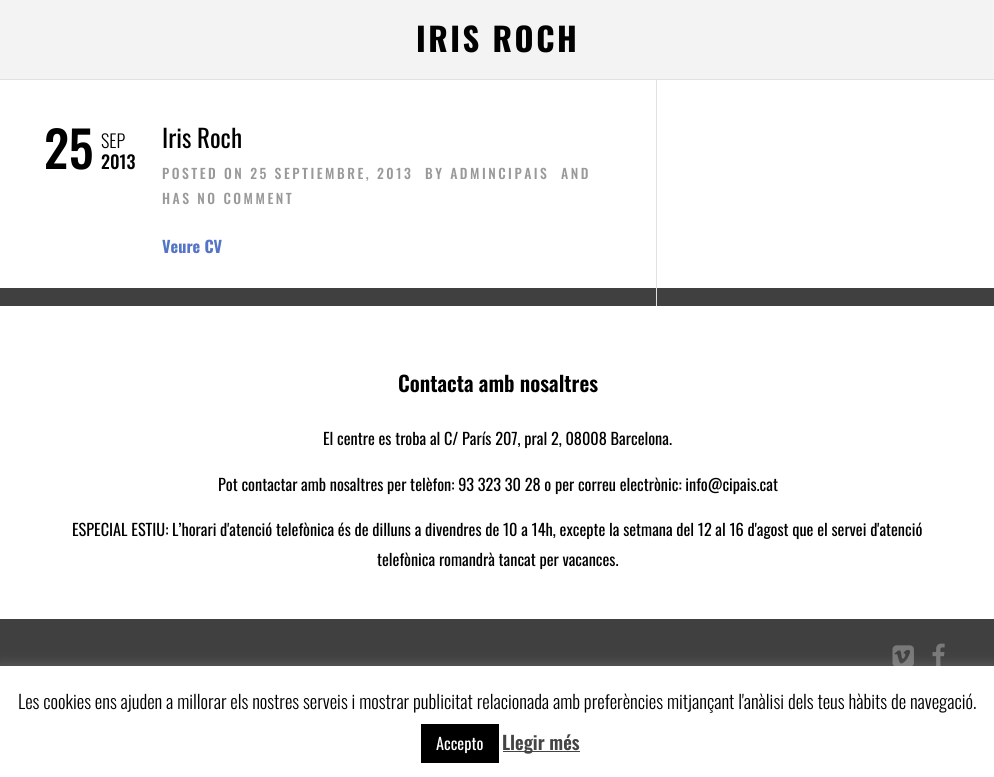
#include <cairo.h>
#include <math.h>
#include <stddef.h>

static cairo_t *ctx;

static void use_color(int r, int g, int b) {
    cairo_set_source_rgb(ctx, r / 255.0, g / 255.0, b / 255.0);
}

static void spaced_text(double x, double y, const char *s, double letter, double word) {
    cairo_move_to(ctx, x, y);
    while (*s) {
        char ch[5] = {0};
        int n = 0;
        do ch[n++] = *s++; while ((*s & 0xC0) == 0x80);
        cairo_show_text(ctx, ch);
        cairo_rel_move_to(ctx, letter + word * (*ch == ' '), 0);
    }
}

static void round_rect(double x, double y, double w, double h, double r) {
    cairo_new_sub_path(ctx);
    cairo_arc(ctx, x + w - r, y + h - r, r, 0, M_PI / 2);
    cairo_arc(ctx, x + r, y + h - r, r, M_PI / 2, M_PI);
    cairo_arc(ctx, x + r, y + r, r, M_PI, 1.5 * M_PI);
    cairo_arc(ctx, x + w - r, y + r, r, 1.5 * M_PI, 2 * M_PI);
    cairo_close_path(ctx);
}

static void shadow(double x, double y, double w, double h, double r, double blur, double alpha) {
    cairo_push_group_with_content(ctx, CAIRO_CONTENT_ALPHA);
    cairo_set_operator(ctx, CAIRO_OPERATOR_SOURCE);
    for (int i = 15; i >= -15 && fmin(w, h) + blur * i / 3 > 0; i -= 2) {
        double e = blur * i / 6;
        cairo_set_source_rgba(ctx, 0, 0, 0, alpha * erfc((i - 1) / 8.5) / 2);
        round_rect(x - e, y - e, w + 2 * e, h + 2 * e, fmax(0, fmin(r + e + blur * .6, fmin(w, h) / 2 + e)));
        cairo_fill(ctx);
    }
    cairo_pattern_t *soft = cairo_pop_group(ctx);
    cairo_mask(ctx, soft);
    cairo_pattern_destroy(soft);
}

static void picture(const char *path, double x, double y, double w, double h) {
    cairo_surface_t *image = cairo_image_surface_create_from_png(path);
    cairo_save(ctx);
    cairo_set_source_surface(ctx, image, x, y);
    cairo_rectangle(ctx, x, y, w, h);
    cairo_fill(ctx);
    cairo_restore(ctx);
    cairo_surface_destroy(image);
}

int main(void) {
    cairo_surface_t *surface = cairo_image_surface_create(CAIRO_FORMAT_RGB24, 994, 777);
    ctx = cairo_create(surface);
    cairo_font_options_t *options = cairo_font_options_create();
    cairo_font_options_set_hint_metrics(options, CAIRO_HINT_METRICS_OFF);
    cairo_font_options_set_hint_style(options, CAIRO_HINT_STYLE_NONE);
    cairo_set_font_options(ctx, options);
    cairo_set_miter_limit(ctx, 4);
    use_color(255, 255, 255);
    cairo_paint(ctx);
    use_color(243, 243, 243);
    cairo_rectangle(ctx, 0, 0, 994, 79);
    cairo_fill(ctx);
    use_color(225, 225, 225);
    cairo_rectangle(ctx, 0, 79, 994, 1);
    cairo_fill(ctx);
    cairo_select_font_face(ctx, "Oswald", CAIRO_FONT_SLANT_NORMAL, CAIRO_FONT_WEIGHT_BOLD);
    cairo_set_font_size(ctx, 32.5);
    use_color(0, 0, 0);
    spaced_text(416, 52, "IRIS ROCH", 2.5, 0);
    use_color(64, 64, 64);
    cairo_rectangle(ctx, 0, 288, 994, 378);
    cairo_fill(ctx);
    use_color(225, 225, 225);
    cairo_rectangle(ctx, 656, 80, 1, 226);
    cairo_fill(ctx);
    cairo_select_font_face(ctx, "Oswald Medium", CAIRO_FONT_SLANT_NORMAL, CAIRO_FONT_WEIGHT_NORMAL);
    cairo_set_font_size(ctx, 50);
    use_color(0, 0, 0);
    cairo_move_to(ctx, 44, 169);
    cairo_show_text(ctx, "25");
    cairo_select_font_face(ctx, "Oswald Light", CAIRO_FONT_SLANT_NORMAL, CAIRO_FONT_WEIGHT_NORMAL);
    cairo_set_font_size(ctx, 18);
    cairo_move_to(ctx, 101, 148);
    cairo_show_text(ctx, "SEP");
    cairo_select_font_face(ctx, "Oswald Medium", CAIRO_FONT_SLANT_NORMAL, CAIRO_FONT_WEIGHT_NORMAL);
    cairo_move_to(ctx, 101, 169);
    cairo_show_text(ctx, "2013");
    cairo_select_font_face(ctx, "Oswald", CAIRO_FONT_SLANT_NORMAL, CAIRO_FONT_WEIGHT_NORMAL);
    cairo_set_font_size(ctx, 25);
    cairo_move_to(ctx, 162, 148);
    cairo_show_text(ctx, "Iris Roch");
    cairo_select_font_face(ctx, "Oswald Medium", CAIRO_FONT_SLANT_NORMAL, CAIRO_FONT_WEIGHT_NORMAL);
    cairo_set_font_size(ctx, 13.75);
    use_color(153, 153, 153);
    spaced_text(162, 179, "POSTED ON 25 SEPTIEMBRE, 2013", 2.5, 0);
    spaced_text(425, 179, "BY ADMINCIPAIS", 2.5, 0);
    spaced_text(561, 179, "AND", 2.5, 0);
    spaced_text(162, 204, "HAS NO COMMENT", 2.5, 0);
    cairo_select_font_face(ctx, "Oswald", CAIRO_FONT_SLANT_NORMAL, CAIRO_FONT_WEIGHT_BOLD);
    cairo_set_font_size(ctx, 16.25);
    use_color(84, 116, 198);
    cairo_move_to(ctx, 162, 253);
    cairo_show_text(ctx, "Veure CV");
    use_color(255, 255, 255);
    cairo_rectangle(ctx, 0, 306, 994, 313);
    cairo_fill(ctx);
    cairo_select_font_face(ctx, "Oswald SemiBold", CAIRO_FONT_SLANT_NORMAL, CAIRO_FONT_WEIGHT_NORMAL);
    cairo_set_font_size(ctx, 21.25);
    use_color(0, 0, 0);
    cairo_move_to(ctx, 398, 392);
    cairo_show_text(ctx, "Contacta amb nosaltres");
    cairo_select_font_face(ctx, "Oswald", CAIRO_FONT_SLANT_NORMAL, CAIRO_FONT_WEIGHT_NORMAL);
    cairo_set_font_size(ctx, 16.25);
    cairo_move_to(ctx, 323, 445);
    cairo_show_text(ctx, "El centre es troba al C/ París 207, pral 2, 08008 Barcelona.");
    cairo_move_to(ctx, 218, 491);
    cairo_show_text(ctx, "Pot contactar amb nosaltres per telèfon: 93 323 30 28 o per correu electrònic: info@cipais.cat");
    cairo_move_to(ctx, 72, 536);
    cairo_show_text(ctx, "ESPECIAL ESTIU: L’horari d'atenció telefònica és de dilluns a divendres de 10 a 14h, excepte la setmana del 12 al 16 d'agost que el servei d'atenció");
    cairo_move_to(ctx, 377, 566);
    cairo_show_text(ctx, "telefònica romandrà tancat per vacances.");
    picture("img1.png", 892, 645, 22, 21);
    picture("img2.png", 932, 643, 13, 23);
    use_color(172, 171, 171);
    shadow(0, 665, 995, 111, 0, 6, 0.3);
    use_color(255, 255, 255);
    cairo_rectangle(ctx, 0, 666, 994, 111);
    cairo_fill(ctx);
    cairo_select_font_face(ctx, "Oswald Light", CAIRO_FONT_SLANT_NORMAL, CAIRO_FONT_WEIGHT_NORMAL);
    cairo_set_font_size(ctx, 18.75);
    use_color(0, 0, 0);
    cairo_move_to(ctx, 18, 709);
    cairo_show_text(ctx, "Les cookies ens ajuden a millorar els nostres serveis i mostrar publicitat relacionada amb preferències mitjançant l'anàlisi dels teus hàbits de navegació.");
    cairo_rectangle(ctx, 421, 724, 78, 39);
    cairo_fill(ctx);
    cairo_select_font_face(ctx, "Oswald", CAIRO_FONT_SLANT_NORMAL, CAIRO_FONT_WEIGHT_NORMAL);
    cairo_set_font_size(ctx, 16.25);
    use_color(255, 255, 255);
    cairo_move_to(ctx, 436, 750);
    cairo_show_text(ctx, "Accepto");
    use_color(68, 68, 68);
    cairo_rectangle(ctx, 503, 751, 77, 1);
    cairo_fill(ctx);
    cairo_select_font_face(ctx, "Oswald SemiBold", CAIRO_FONT_SLANT_NORMAL, CAIRO_FONT_WEIGHT_NORMAL);
    cairo_set_font_size(ctx, 18.75);
    cairo_move_to(ctx, 502, 750);
    cairo_show_text(ctx, "Llegir més");
    cairo_surface_write_to_png(surface, "result.png");
    cairo_font_options_destroy(options);
    cairo_destroy(ctx);
    cairo_surface_destroy(surface);
    return 0;
}
